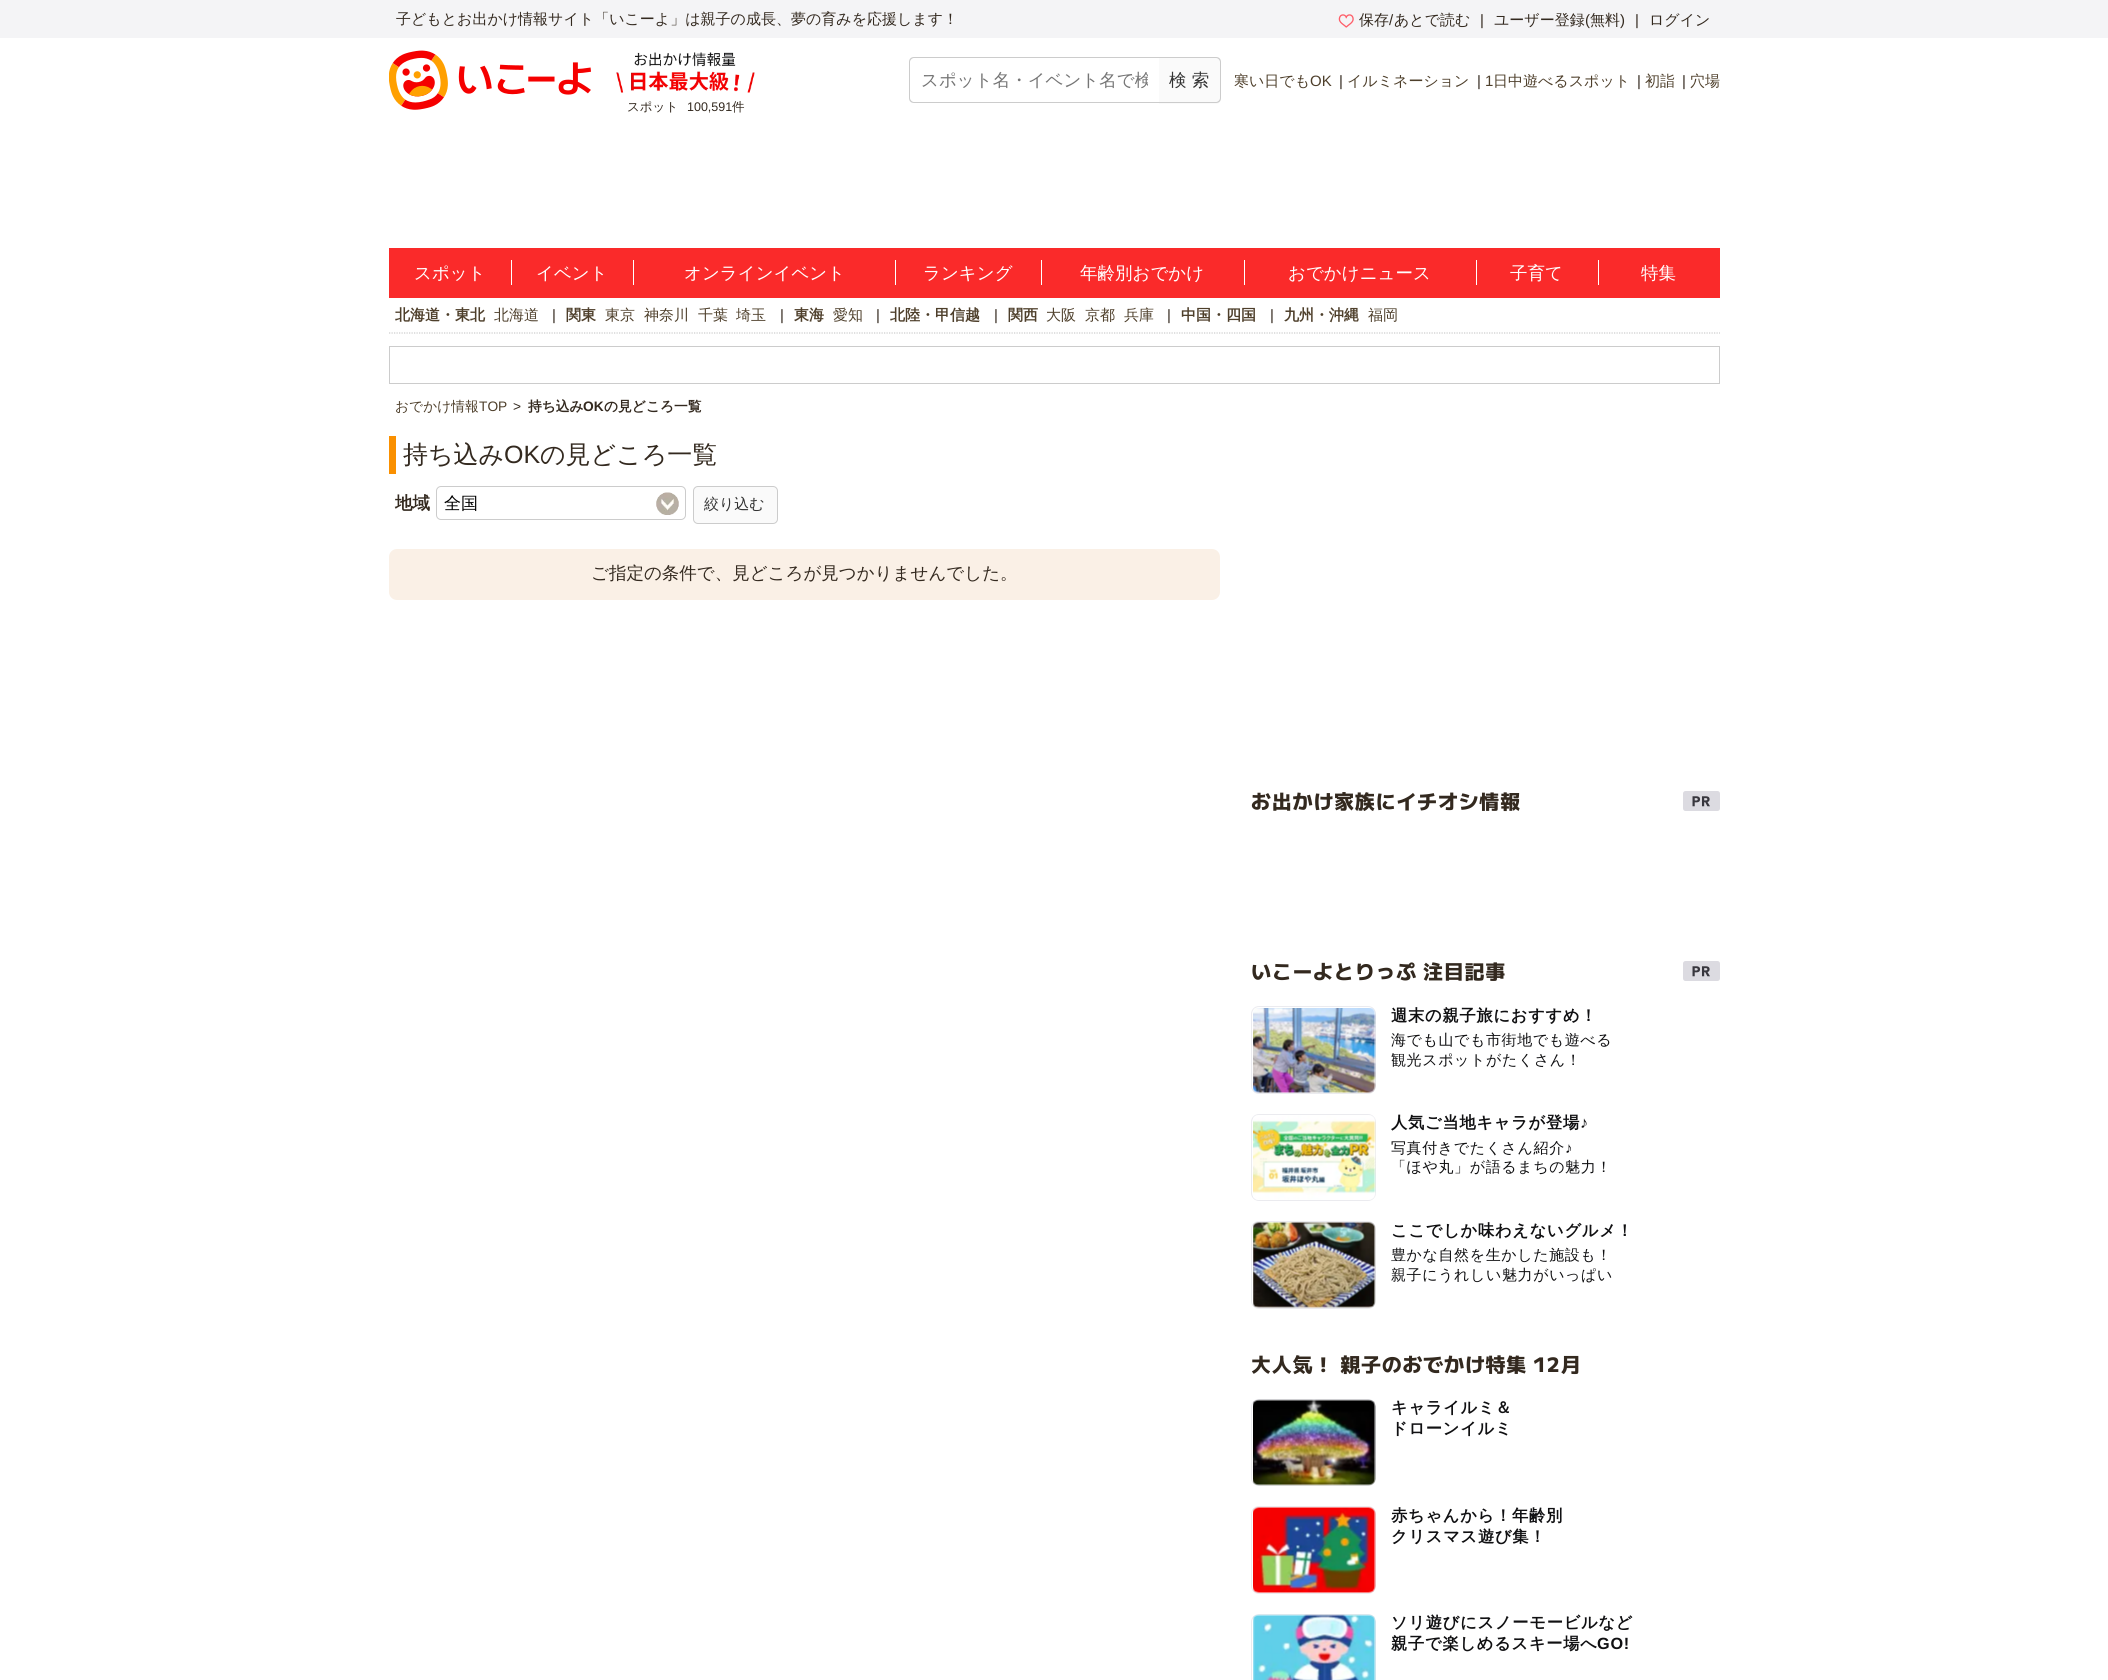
#include <cairo.h>
#include <math.h>
#include <stddef.h>

static cairo_t *ctx;

static void use_color(int r, int g, int b) {
    cairo_set_source_rgb(ctx, r / 255.0, g / 255.0, b / 255.0);
}

static void spaced_text(double x, double y, const char *s, double letter, double word) {
    cairo_move_to(ctx, x, y);
    while (*s) {
        char ch[5] = {0};
        int n = 0;
        do ch[n++] = *s++; while ((*s & 0xC0) == 0x80);
        cairo_show_text(ctx, ch);
        cairo_rel_move_to(ctx, letter + word * (*ch == ' '), 0);
    }
}

static void round_rect(double x, double y, double w, double h, double r) {
    cairo_new_sub_path(ctx);
    cairo_arc(ctx, x + w - r, y + h - r, r, 0, M_PI / 2);
    cairo_arc(ctx, x + r, y + h - r, r, M_PI / 2, M_PI);
    cairo_arc(ctx, x + r, y + r, r, M_PI, 1.5 * M_PI);
    cairo_arc(ctx, x + w - r, y + r, r, 1.5 * M_PI, 2 * M_PI);
    cairo_close_path(ctx);
}

static void picture(const char *path, double x, double y, double w, double h) {
    cairo_surface_t *image = cairo_image_surface_create_from_png(path);
    cairo_save(ctx);
    cairo_set_source_surface(ctx, image, x, y);
    cairo_rectangle(ctx, x, y, w, h);
    cairo_fill(ctx);
    cairo_restore(ctx);
    cairo_surface_destroy(image);
}

int main(void) {
    cairo_surface_t *surface = cairo_image_surface_create(CAIRO_FORMAT_RGB24, 2108, 1680);
    ctx = cairo_create(surface);
    cairo_font_options_t *options = cairo_font_options_create();
    cairo_font_options_set_hint_metrics(options, CAIRO_HINT_METRICS_OFF);
    cairo_font_options_set_hint_style(options, CAIRO_HINT_STYLE_NONE);
    cairo_set_font_options(ctx, options);
    cairo_set_miter_limit(ctx, 4);
    use_color(255, 255, 255);
    cairo_paint(ctx);
    use_color(244, 244, 246);
    cairo_rectangle(ctx, 0, 0, 2108, 38);
    cairo_fill(ctx);
    cairo_select_font_face(ctx, "WenQuanYi Zen Hei Medium", CAIRO_FONT_SLANT_NORMAL, CAIRO_FONT_WEIGHT_NORMAL);
    cairo_set_font_size(ctx, 15);
    use_color(51, 41, 31);
    cairo_move_to(ctx, 396, 24);
    cairo_show_text(ctx, "子どもとお出かけ情報サイト「いこーよ」は親子の成長、夢の育みを応援します！");
    picture("img1.png", 1338, 14, 16, 14);
    cairo_move_to(ctx, 1359, 25);
    cairo_show_text(ctx, "保存");
    cairo_select_font_face(ctx, "Liberation Sans", CAIRO_FONT_SLANT_NORMAL, CAIRO_FONT_WEIGHT_NORMAL);
    cairo_move_to(ctx, 1389, 25);
    cairo_show_text(ctx, "/");
    cairo_select_font_face(ctx, "WenQuanYi Zen Hei Medium", CAIRO_FONT_SLANT_NORMAL, CAIRO_FONT_WEIGHT_NORMAL);
    cairo_move_to(ctx, 1394, 25);
    cairo_show_text(ctx, "あとで読む");
    cairo_select_font_face(ctx, "Liberation Sans", CAIRO_FONT_SLANT_NORMAL, CAIRO_FONT_WEIGHT_NORMAL);
    cairo_move_to(ctx, 1480, 25);
    cairo_show_text(ctx, "|");
    cairo_select_font_face(ctx, "WenQuanYi Zen Hei Medium", CAIRO_FONT_SLANT_NORMAL, CAIRO_FONT_WEIGHT_NORMAL);
    cairo_move_to(ctx, 1494, 25);
    cairo_show_text(ctx, "ユーザー登録");
    cairo_select_font_face(ctx, "Liberation Sans", CAIRO_FONT_SLANT_NORMAL, CAIRO_FONT_WEIGHT_NORMAL);
    cairo_move_to(ctx, 1585, 25);
    cairo_show_text(ctx, "(");
    cairo_select_font_face(ctx, "WenQuanYi Zen Hei Medium", CAIRO_FONT_SLANT_NORMAL, CAIRO_FONT_WEIGHT_NORMAL);
    cairo_move_to(ctx, 1590, 25);
    cairo_show_text(ctx, "無料");
    cairo_select_font_face(ctx, "Liberation Sans", CAIRO_FONT_SLANT_NORMAL, CAIRO_FONT_WEIGHT_NORMAL);
    cairo_move_to(ctx, 1620, 25);
    cairo_show_text(ctx, ")");
    cairo_move_to(ctx, 1635, 25);
    cairo_show_text(ctx, "|");
    cairo_select_font_face(ctx, "WenQuanYi Zen Hei Medium", CAIRO_FONT_SLANT_NORMAL, CAIRO_FONT_WEIGHT_NORMAL);
    cairo_move_to(ctx, 1649, 25);
    cairo_show_text(ctx, "ログイン");
    picture("img2.png", 389, 50, 202, 60);
    use_color(204, 204, 204);
    cairo_set_fill_rule(ctx, CAIRO_FILL_RULE_EVEN_ODD);
    cairo_new_path(ctx);
    cairo_move_to(ctx, 914, 57);
    cairo_line_to(ctx, 1159, 57);
    cairo_line_to(ctx, 1159, 103);
    cairo_line_to(ctx, 914, 103);
    cairo_curve_to(ctx, 911, 103, 909, 101, 909, 98);
    cairo_line_to(ctx, 909, 62);
    cairo_curve_to(ctx, 909, 59, 911, 57, 914, 57);
    cairo_close_path(ctx);
    cairo_move_to(ctx, 914, 58);
    cairo_line_to(ctx, 1159, 58);
    cairo_line_to(ctx, 1159, 102);
    cairo_line_to(ctx, 914, 102);
    cairo_curve_to(ctx, 912, 102, 910, 100, 910, 98);
    cairo_line_to(ctx, 910, 62);
    cairo_curve_to(ctx, 910, 60, 912, 58, 914, 58);
    cairo_close_path(ctx);
    cairo_fill(ctx);
    cairo_save(ctx);
    cairo_set_fill_rule(ctx, CAIRO_FILL_RULE_WINDING);
    cairo_rectangle(ctx, 921, 70, 227, 23);
    cairo_clip(ctx);
    cairo_set_font_size(ctx, 17.5);
    use_color(117, 117, 117);
    cairo_move_to(ctx, 921, 86);
    cairo_show_text(ctx, "スポット名・イベント名で検");
    cairo_restore(ctx);
    use_color(250, 250, 250);
    cairo_new_path(ctx);
    cairo_move_to(ctx, 1159, 58);
    cairo_line_to(ctx, 1216, 58);
    cairo_curve_to(ctx, 1219, 58, 1221, 60, 1221, 63);
    cairo_line_to(ctx, 1221, 99);
    cairo_curve_to(ctx, 1221, 102, 1219, 104, 1216, 104);
    cairo_line_to(ctx, 1159, 104);
    cairo_close_path(ctx);
    cairo_fill(ctx);
    use_color(204, 204, 204);
    cairo_new_path(ctx);
    cairo_move_to(ctx, 1159, 57);
    cairo_line_to(ctx, 1216, 57);
    cairo_curve_to(ctx, 1219, 57, 1221, 59, 1221, 62);
    cairo_line_to(ctx, 1221, 98);
    cairo_curve_to(ctx, 1221, 101, 1219, 103, 1216, 103);
    cairo_line_to(ctx, 1159, 103);
    cairo_close_path(ctx);
    cairo_move_to(ctx, 1159, 58);
    cairo_line_to(ctx, 1216, 58);
    cairo_curve_to(ctx, 1218, 58, 1220, 60, 1220, 62);
    cairo_line_to(ctx, 1220, 98);
    cairo_curve_to(ctx, 1220, 100, 1218, 102, 1216, 102);
    cairo_line_to(ctx, 1159, 102);
    cairo_close_path(ctx);
    cairo_fill(ctx);
    cairo_set_font_size(ctx, 17.5);
    use_color(51, 51, 51);
    cairo_move_to(ctx, 1169, 86);
    cairo_show_text(ctx, "検 索");
    cairo_set_font_size(ctx, 15);
    use_color(78, 63, 43);
    cairo_move_to(ctx, 1234, 86);
    cairo_show_text(ctx, "寒い日でも");
    cairo_select_font_face(ctx, "Liberation Sans", CAIRO_FONT_SLANT_NORMAL, CAIRO_FONT_WEIGHT_NORMAL);
    cairo_move_to(ctx, 1310, 86);
    cairo_show_text(ctx, "OK");
    use_color(51, 41, 31);
    cairo_move_to(ctx, 1339, 86);
    cairo_show_text(ctx, "|");
    cairo_select_font_face(ctx, "WenQuanYi Zen Hei Medium", CAIRO_FONT_SLANT_NORMAL, CAIRO_FONT_WEIGHT_NORMAL);
    use_color(78, 63, 43);
    cairo_move_to(ctx, 1347, 86);
    cairo_show_text(ctx, "イルミネーション");
    cairo_select_font_face(ctx, "Liberation Sans", CAIRO_FONT_SLANT_NORMAL, CAIRO_FONT_WEIGHT_NORMAL);
    use_color(51, 41, 31);
    cairo_move_to(ctx, 1477, 86);
    cairo_show_text(ctx, "|");
    use_color(78, 63, 43);
    cairo_move_to(ctx, 1485, 86);
    cairo_show_text(ctx, "1");
    cairo_select_font_face(ctx, "WenQuanYi Zen Hei Medium", CAIRO_FONT_SLANT_NORMAL, CAIRO_FONT_WEIGHT_NORMAL);
    cairo_move_to(ctx, 1493, 86);
    cairo_show_text(ctx, "日中遊べるスポット");
    cairo_select_font_face(ctx, "Liberation Sans", CAIRO_FONT_SLANT_NORMAL, CAIRO_FONT_WEIGHT_NORMAL);
    use_color(51, 41, 31);
    cairo_move_to(ctx, 1637, 86);
    cairo_show_text(ctx, "|");
    cairo_select_font_face(ctx, "WenQuanYi Zen Hei Medium", CAIRO_FONT_SLANT_NORMAL, CAIRO_FONT_WEIGHT_NORMAL);
    use_color(78, 63, 43);
    cairo_move_to(ctx, 1645, 86);
    cairo_show_text(ctx, "初詣");
    cairo_select_font_face(ctx, "Liberation Sans", CAIRO_FONT_SLANT_NORMAL, CAIRO_FONT_WEIGHT_NORMAL);
    use_color(51, 41, 31);
    cairo_move_to(ctx, 1682, 86);
    cairo_show_text(ctx, "|");
    cairo_select_font_face(ctx, "WenQuanYi Zen Hei Medium", CAIRO_FONT_SLANT_NORMAL, CAIRO_FONT_WEIGHT_NORMAL);
    use_color(78, 63, 43);
    cairo_move_to(ctx, 1690, 86);
    cairo_show_text(ctx, "穴場");
    picture("img3.png", 616, 52, 139, 41);
    cairo_set_font_size(ctx, 12.5);
    use_color(51, 41, 31);
    cairo_move_to(ctx, 627, 111);
    cairo_show_text(ctx, "スポット");
    cairo_select_font_face(ctx, "Liberation Sans", CAIRO_FONT_SLANT_NORMAL, CAIRO_FONT_WEIGHT_NORMAL);
    cairo_move_to(ctx, 687, 111);
    cairo_show_text(ctx, "100,591");
    cairo_select_font_face(ctx, "WenQuanYi Zen Hei Medium", CAIRO_FONT_SLANT_NORMAL, CAIRO_FONT_WEIGHT_NORMAL);
    cairo_move_to(ctx, 732, 111);
    cairo_show_text(ctx, "件");
    use_color(250, 42, 42);
    cairo_rectangle(ctx, 389, 248, 1331, 50);
    cairo_fill(ctx);
    cairo_set_font_size(ctx, 17.5);
    use_color(255, 255, 255);
    cairo_move_to(ctx, 414, 279);
    cairo_show_text(ctx, "スポット");
    cairo_rectangle(ctx, 511, 260, 1, 25);
    cairo_fill(ctx);
    cairo_move_to(ctx, 536, 279);
    cairo_show_text(ctx, "イベント");
    cairo_rectangle(ctx, 633, 260, 1, 25);
    cairo_fill(ctx);
    cairo_move_to(ctx, 684, 279);
    cairo_show_text(ctx, "オンラインイベント");
    cairo_rectangle(ctx, 895, 260, 1, 25);
    cairo_fill(ctx);
    cairo_move_to(ctx, 923, 279);
    cairo_show_text(ctx, "ランキング");
    cairo_rectangle(ctx, 1041, 260, 1, 25);
    cairo_fill(ctx);
    cairo_move_to(ctx, 1080, 279);
    cairo_show_text(ctx, "年齢別おでかけ");
    cairo_rectangle(ctx, 1244, 260, 1, 25);
    cairo_fill(ctx);
    cairo_move_to(ctx, 1288, 279);
    cairo_show_text(ctx, "おでかけニュース");
    cairo_rectangle(ctx, 1476, 260, 1, 25);
    cairo_fill(ctx);
    cairo_move_to(ctx, 1510, 279);
    cairo_show_text(ctx, "子育て");
    cairo_rectangle(ctx, 1598, 260, 1, 25);
    cairo_fill(ctx);
    cairo_move_to(ctx, 1641, 279);
    cairo_show_text(ctx, "特集");
    cairo_new_path(ctx);
    cairo_move_to(ctx, 389, 333);
    cairo_line_to(ctx, 1720, 333);
    use_color(204, 204, 204);
    cairo_set_line_width(ctx, 1.2);
    cairo_set_dash(ctx, (double[]){1.25, 1.25}, 2, 0);
    cairo_stroke(ctx);
    cairo_select_font_face(ctx, "WenQuanYi Zen Hei", CAIRO_FONT_SLANT_NORMAL, CAIRO_FONT_WEIGHT_BOLD);
    cairo_set_font_size(ctx, 15);
    use_color(78, 63, 43);
    cairo_move_to(ctx, 395, 320);
    cairo_show_text(ctx, "北海道・東北");
    cairo_select_font_face(ctx, "WenQuanYi Zen Hei Medium", CAIRO_FONT_SLANT_NORMAL, CAIRO_FONT_WEIGHT_NORMAL);
    cairo_move_to(ctx, 494, 320);
    cairo_show_text(ctx, "北海道");
    cairo_select_font_face(ctx, "Liberation Sans", CAIRO_FONT_SLANT_NORMAL, CAIRO_FONT_WEIGHT_NORMAL);
    use_color(51, 41, 31);
    cairo_move_to(ctx, 552, 320);
    cairo_show_text(ctx, "|");
    cairo_select_font_face(ctx, "WenQuanYi Zen Hei", CAIRO_FONT_SLANT_NORMAL, CAIRO_FONT_WEIGHT_BOLD);
    use_color(78, 63, 43);
    cairo_move_to(ctx, 566, 320);
    cairo_show_text(ctx, "関東");
    cairo_select_font_face(ctx, "WenQuanYi Zen Hei Medium", CAIRO_FONT_SLANT_NORMAL, CAIRO_FONT_WEIGHT_NORMAL);
    cairo_move_to(ctx, 605, 320);
    cairo_show_text(ctx, "東京");
    cairo_move_to(ctx, 644, 320);
    cairo_show_text(ctx, "神奈川");
    cairo_move_to(ctx, 698, 320);
    cairo_show_text(ctx, "千葉");
    cairo_move_to(ctx, 736, 320);
    cairo_show_text(ctx, "埼玉");
    cairo_select_font_face(ctx, "Liberation Sans", CAIRO_FONT_SLANT_NORMAL, CAIRO_FONT_WEIGHT_NORMAL);
    use_color(51, 41, 31);
    cairo_move_to(ctx, 780, 320);
    cairo_show_text(ctx, "|");
    cairo_select_font_face(ctx, "WenQuanYi Zen Hei", CAIRO_FONT_SLANT_NORMAL, CAIRO_FONT_WEIGHT_BOLD);
    use_color(78, 63, 43);
    cairo_move_to(ctx, 794, 320);
    cairo_show_text(ctx, "東海");
    cairo_select_font_face(ctx, "WenQuanYi Zen Hei Medium", CAIRO_FONT_SLANT_NORMAL, CAIRO_FONT_WEIGHT_NORMAL);
    cairo_move_to(ctx, 833, 320);
    cairo_show_text(ctx, "愛知");
    cairo_select_font_face(ctx, "Liberation Sans", CAIRO_FONT_SLANT_NORMAL, CAIRO_FONT_WEIGHT_NORMAL);
    use_color(51, 41, 31);
    cairo_move_to(ctx, 876, 320);
    cairo_show_text(ctx, "|");
    cairo_select_font_face(ctx, "WenQuanYi Zen Hei", CAIRO_FONT_SLANT_NORMAL, CAIRO_FONT_WEIGHT_BOLD);
    use_color(78, 63, 43);
    cairo_move_to(ctx, 890, 320);
    cairo_show_text(ctx, "北陸・甲信越");
    cairo_select_font_face(ctx, "Liberation Sans", CAIRO_FONT_SLANT_NORMAL, CAIRO_FONT_WEIGHT_NORMAL);
    use_color(51, 41, 31);
    cairo_move_to(ctx, 994, 320);
    cairo_show_text(ctx, "|");
    cairo_select_font_face(ctx, "WenQuanYi Zen Hei", CAIRO_FONT_SLANT_NORMAL, CAIRO_FONT_WEIGHT_BOLD);
    use_color(78, 63, 43);
    cairo_move_to(ctx, 1008, 320);
    cairo_show_text(ctx, "関西");
    cairo_select_font_face(ctx, "WenQuanYi Zen Hei Medium", CAIRO_FONT_SLANT_NORMAL, CAIRO_FONT_WEIGHT_NORMAL);
    cairo_move_to(ctx, 1046, 320);
    cairo_show_text(ctx, "大阪");
    cairo_move_to(ctx, 1085, 320);
    cairo_show_text(ctx, "京都");
    cairo_move_to(ctx, 1124, 320);
    cairo_show_text(ctx, "兵庫");
    cairo_select_font_face(ctx, "Liberation Sans", CAIRO_FONT_SLANT_NORMAL, CAIRO_FONT_WEIGHT_NORMAL);
    use_color(51, 41, 31);
    cairo_move_to(ctx, 1167, 320);
    cairo_show_text(ctx, "|");
    cairo_select_font_face(ctx, "WenQuanYi Zen Hei", CAIRO_FONT_SLANT_NORMAL, CAIRO_FONT_WEIGHT_BOLD);
    use_color(78, 63, 43);
    cairo_move_to(ctx, 1181, 320);
    cairo_show_text(ctx, "中国・四国");
    cairo_select_font_face(ctx, "Liberation Sans", CAIRO_FONT_SLANT_NORMAL, CAIRO_FONT_WEIGHT_NORMAL);
    use_color(51, 41, 31);
    cairo_move_to(ctx, 1270, 320);
    cairo_show_text(ctx, "|");
    cairo_select_font_face(ctx, "WenQuanYi Zen Hei", CAIRO_FONT_SLANT_NORMAL, CAIRO_FONT_WEIGHT_BOLD);
    use_color(78, 63, 43);
    cairo_move_to(ctx, 1284, 320);
    cairo_show_text(ctx, "九州・沖縄");
    cairo_select_font_face(ctx, "WenQuanYi Zen Hei Medium", CAIRO_FONT_SLANT_NORMAL, CAIRO_FONT_WEIGHT_NORMAL);
    cairo_move_to(ctx, 1368, 320);
    cairo_show_text(ctx, "福岡");
    cairo_rectangle(ctx, 389.5, 346.5, 1330, 37);
    use_color(204, 204, 204);
    cairo_set_line_width(ctx, 1);
    cairo_set_dash(ctx, NULL, 0, 0);
    cairo_stroke(ctx);
    cairo_set_font_size(ctx, 13.75);
    use_color(78, 63, 43);
    cairo_move_to(ctx, 395, 411);
    cairo_show_text(ctx, "おでかけ情報");
    cairo_select_font_face(ctx, "Liberation Sans", CAIRO_FONT_SLANT_NORMAL, CAIRO_FONT_WEIGHT_NORMAL);
    cairo_move_to(ctx, 479, 411);
    cairo_show_text(ctx, "TOP");
    use_color(51, 41, 31);
    cairo_move_to(ctx, 513, 411);
    cairo_show_text(ctx, ">");
    cairo_select_font_face(ctx, "WenQuanYi Zen Hei", CAIRO_FONT_SLANT_NORMAL, CAIRO_FONT_WEIGHT_BOLD);
    cairo_move_to(ctx, 528, 411);
    cairo_show_text(ctx, "持ち込み");
    cairo_select_font_face(ctx, "Liberation Sans", CAIRO_FONT_SLANT_NORMAL, CAIRO_FONT_WEIGHT_BOLD);
    cairo_move_to(ctx, 583, 411);
    cairo_show_text(ctx, "OK");
    cairo_select_font_face(ctx, "WenQuanYi Zen Hei", CAIRO_FONT_SLANT_NORMAL, CAIRO_FONT_WEIGHT_BOLD);
    cairo_move_to(ctx, 604, 411);
    cairo_show_text(ctx, "の見どころ一覧");
    use_color(250, 144, 0);
    cairo_rectangle(ctx, 389, 436, 7, 38);
    cairo_fill(ctx);
    cairo_select_font_face(ctx, "WenQuanYi Zen Hei Medium", CAIRO_FONT_SLANT_NORMAL, CAIRO_FONT_WEIGHT_NORMAL);
    cairo_set_font_size(ctx, 25);
    use_color(51, 41, 31);
    cairo_move_to(ctx, 403, 463);
    cairo_show_text(ctx, "持ち込み");
    cairo_select_font_face(ctx, "Liberation Sans", CAIRO_FONT_SLANT_NORMAL, CAIRO_FONT_WEIGHT_NORMAL);
    cairo_move_to(ctx, 504, 463);
    cairo_show_text(ctx, "OK");
    cairo_select_font_face(ctx, "WenQuanYi Zen Hei Medium", CAIRO_FONT_SLANT_NORMAL, CAIRO_FONT_WEIGHT_NORMAL);
    cairo_move_to(ctx, 540, 463);
    cairo_show_text(ctx, "の見どころ一覧");
    cairo_select_font_face(ctx, "WenQuanYi Zen Hei", CAIRO_FONT_SLANT_NORMAL, CAIRO_FONT_WEIGHT_BOLD);
    cairo_set_font_size(ctx, 17.5);
    cairo_move_to(ctx, 395, 509);
    cairo_show_text(ctx, "地域");
    picture("img4.png", 656, 492, 23, 23);
    round_rect(436.5, 486.5, 249, 33, 4.5);
    use_color(204, 204, 204);
    cairo_stroke(ctx);
    cairo_select_font_face(ctx, "WenQuanYi Zen Hei Medium", CAIRO_FONT_SLANT_NORMAL, CAIRO_FONT_WEIGHT_NORMAL);
    cairo_set_font_size(ctx, 17);
    use_color(0, 0, 0);
    cairo_move_to(ctx, 444, 509);
    cairo_show_text(ctx, "全国");
    use_color(250, 250, 250);
    round_rect(693.5, 486.5, 84, 37, 4.5);
    cairo_fill_preserve(ctx);
    use_color(204, 204, 204);
    cairo_stroke(ctx);
    cairo_set_font_size(ctx, 15);
    use_color(51, 51, 51);
    cairo_move_to(ctx, 704, 509);
    cairo_show_text(ctx, "絞り込む");
    use_color(250, 240, 230);
    round_rect(389, 549, 831, 51, 8);
    cairo_fill(ctx);
    cairo_set_font_size(ctx, 17.5);
    use_color(51, 41, 31);
    cairo_move_to(ctx, 591, 579);
    cairo_show_text(ctx, "ご指定の条件で、見どころが見つかりませんでした。");
    cairo_select_font_face(ctx, "M PLUS 2 Thin", CAIRO_FONT_SLANT_NORMAL, CAIRO_FONT_WEIGHT_NORMAL);
    cairo_set_font_size(ctx, 20);
    spaced_text(1251, 809, "お出かけ家族にイチオシ情報", 0.75, 0);
    picture("img5.png", 1683, 791, 37, 20);
    spaced_text(1251, 979, "いこーよとりっぷ 注目記事", 0.75, 0);
    picture("img5.png", 1683, 961, 37, 20);
    round_rect(1251.5, 1006.5, 124, 87, 7.5);
    use_color(235, 235, 239);
    cairo_stroke(ctx);
    picture("img6.png", 1253, 1008, 123, 85);
    cairo_select_font_face(ctx, "WenQuanYi Zen Hei", CAIRO_FONT_SLANT_NORMAL, CAIRO_FONT_WEIGHT_BOLD);
    cairo_set_font_size(ctx, 16.25);
    use_color(16, 16, 18);
    spaced_text(1391, 1021, "週末の親子旅におすすめ！", 0.75, 0);
    cairo_select_font_face(ctx, "WenQuanYi Zen Hei Medium", CAIRO_FONT_SLANT_NORMAL, CAIRO_FONT_WEIGHT_NORMAL);
    cairo_set_font_size(ctx, 15);
    spaced_text(1391, 1045, "海でも山でも市街地でも遊べる", 0.6, 0);
    spaced_text(1391, 1065, "観光スポットがたくさん！", 0.6, 0);
    round_rect(1251.5, 1114.5, 124, 86, 7.5);
    use_color(235, 235, 239);
    cairo_stroke(ctx);
    picture("img7.png", 1253, 1115, 123, 85);
    cairo_select_font_face(ctx, "WenQuanYi Zen Hei", CAIRO_FONT_SLANT_NORMAL, CAIRO_FONT_WEIGHT_BOLD);
    cairo_set_font_size(ctx, 16.25);
    use_color(16, 16, 18);
    spaced_text(1391, 1128, "人気ご当地キャラが登場", 0.75, 0);
    cairo_select_font_face(ctx, "Liberation Sans", CAIRO_FONT_SLANT_NORMAL, CAIRO_FONT_WEIGHT_BOLD);
    spaced_text(1580, 1128, "♪", 0.75, 0);
    cairo_select_font_face(ctx, "WenQuanYi Zen Hei Medium", CAIRO_FONT_SLANT_NORMAL, CAIRO_FONT_WEIGHT_NORMAL);
    cairo_set_font_size(ctx, 15);
    spaced_text(1391, 1153, "写真付きでたくさん紹介", 0.6, 0);
    cairo_select_font_face(ctx, "Liberation Sans", CAIRO_FONT_SLANT_NORMAL, CAIRO_FONT_WEIGHT_NORMAL);
    spaced_text(1565, 1153, "♪", 0.6, 0);
    cairo_select_font_face(ctx, "WenQuanYi Zen Hei Medium", CAIRO_FONT_SLANT_NORMAL, CAIRO_FONT_WEIGHT_NORMAL);
    spaced_text(1391, 1172, "「ほや丸」が語るまちの魅力！", 0.6, 0);
    round_rect(1251.5, 1221.5, 124, 87, 7.5);
    use_color(235, 235, 239);
    cairo_stroke(ctx);
    picture("img8.png", 1253, 1222, 123, 86);
    cairo_select_font_face(ctx, "WenQuanYi Zen Hei", CAIRO_FONT_SLANT_NORMAL, CAIRO_FONT_WEIGHT_BOLD);
    cairo_set_font_size(ctx, 16.25);
    use_color(16, 16, 18);
    spaced_text(1391, 1236, "ここでしか味わえないグルメ！", 0.75, 0);
    cairo_select_font_face(ctx, "WenQuanYi Zen Hei Medium", CAIRO_FONT_SLANT_NORMAL, CAIRO_FONT_WEIGHT_NORMAL);
    cairo_set_font_size(ctx, 15);
    spaced_text(1391, 1260, "豊かな自然を生かした施設も！", 0.6, 0);
    spaced_text(1391, 1280, "親子にうれしい魅力がいっぱい", 0.6, 0);
    cairo_select_font_face(ctx, "M PLUS 2 Thin", CAIRO_FONT_SLANT_NORMAL, CAIRO_FONT_WEIGHT_NORMAL);
    cairo_set_font_size(ctx, 20);
    use_color(51, 41, 31);
    spaced_text(1251, 1372, "大人気！ 親子のおでかけ特集 12月", 0.75, 0);
    round_rect(1251.5, 1399.5, 124, 86, 7.5);
    use_color(235, 235, 239);
    cairo_stroke(ctx);
    picture("img9.png", 1253, 1399, 123, 87);
    cairo_select_font_face(ctx, "WenQuanYi Zen Hei", CAIRO_FONT_SLANT_NORMAL, CAIRO_FONT_WEIGHT_BOLD);
    cairo_set_font_size(ctx, 16.25);
    use_color(16, 16, 18);
    spaced_text(1391, 1413, "キャライルミ＆", 0.75, 0);
    spaced_text(1391, 1434, "ドローンイルミ", 0.75, 0);
    round_rect(1251.5, 1506.5, 124, 87, 7.5);
    use_color(235, 235, 239);
    cairo_stroke(ctx);
    picture("img10.png", 1253, 1507, 123, 86);
    use_color(16, 16, 18);
    spaced_text(1391, 1521, "赤ちゃんから！年齢別", 0.75, 0);
    spaced_text(1391, 1542, "クリスマス遊び集！", 0.75, 0);
    round_rect(1251.5, 1614.5, 124, 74, 7.5);
    use_color(235, 235, 239);
    cairo_stroke(ctx);
    picture("img11.png", 1253, 1614, 123, 66);
    use_color(16, 16, 18);
    spaced_text(1391, 1628, "ソリ遊びにスノーモービルなど", 0.75, 0);
    spaced_text(1391, 1649, "親子で楽しめるスキー場へ", 0.75, 0);
    cairo_select_font_face(ctx, "Liberation Sans", CAIRO_FONT_SLANT_NORMAL, CAIRO_FONT_WEIGHT_BOLD);
    spaced_text(1597, 1649, "GO!", 0.75, 0);
    cairo_surface_write_to_png(surface, "result.png");
    cairo_font_options_destroy(options);
    cairo_destroy(ctx);
    cairo_surface_destroy(surface);
    return 0;
}
